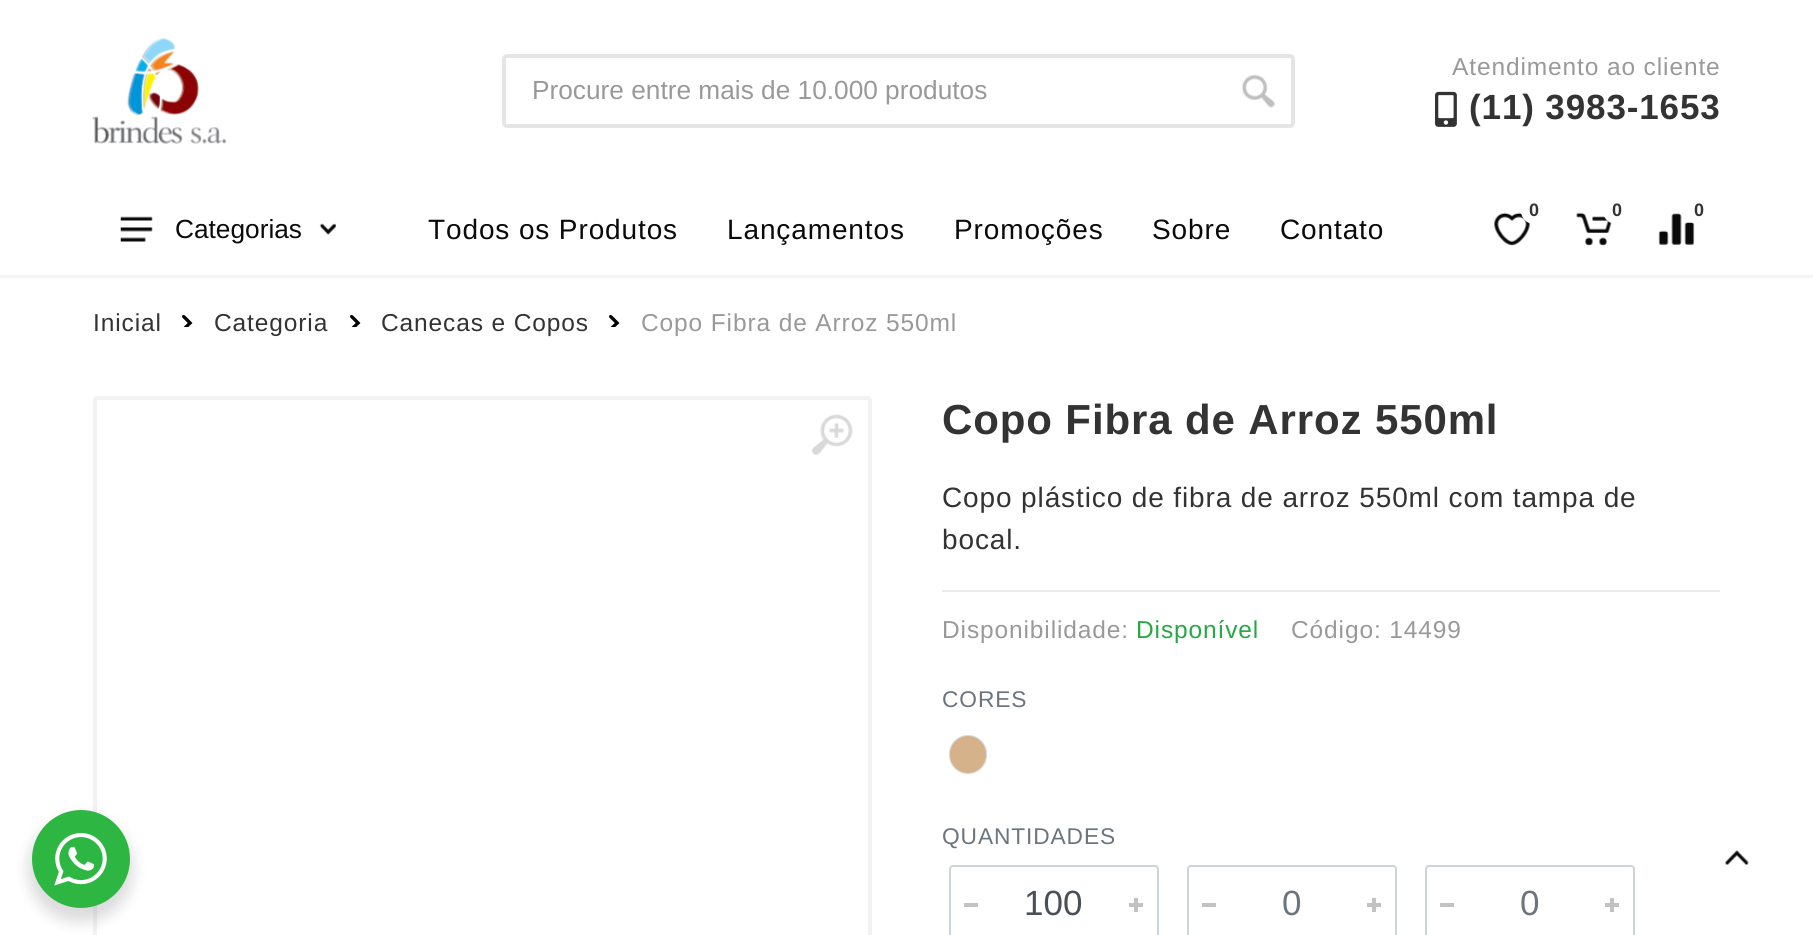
#include <cairo.h>
#include <math.h>
#include <stddef.h>

static cairo_t *ctx;

static void use_color(int r, int g, int b) {
    cairo_set_source_rgb(ctx, r / 255.0, g / 255.0, b / 255.0);
}

static void spaced_text(double x, double y, const char *s, double letter, double word) {
    cairo_move_to(ctx, x, y);
    while (*s) {
        char ch[5] = {0};
        int n = 0;
        do ch[n++] = *s++; while ((*s & 0xC0) == 0x80);
        cairo_show_text(ctx, ch);
        cairo_rel_move_to(ctx, letter + word * (*ch == ' '), 0);
    }
}

static void round_rect(double x, double y, double w, double h, double r) {
    cairo_new_sub_path(ctx);
    cairo_arc(ctx, x + w - r, y + h - r, r, 0, M_PI / 2);
    cairo_arc(ctx, x + r, y + h - r, r, M_PI / 2, M_PI);
    cairo_arc(ctx, x + r, y + r, r, M_PI, 1.5 * M_PI);
    cairo_arc(ctx, x + w - r, y + r, r, 1.5 * M_PI, 2 * M_PI);
    cairo_close_path(ctx);
}

static void shadow(double x, double y, double w, double h, double r, double blur, double alpha) {
    cairo_push_group_with_content(ctx, CAIRO_CONTENT_ALPHA);
    cairo_set_operator(ctx, CAIRO_OPERATOR_SOURCE);
    for (int i = 15; i >= -15 && fmin(w, h) + blur * i / 3 > 0; i -= 2) {
        double e = blur * i / 6;
        cairo_set_source_rgba(ctx, 0, 0, 0, alpha * erfc((i - 1) / 8.5) / 2);
        round_rect(x - e, y - e, w + 2 * e, h + 2 * e, fmax(0, fmin(r + e + blur * .6, fmin(w, h) / 2 + e)));
        cairo_fill(ctx);
    }
    cairo_pattern_t *soft = cairo_pop_group(ctx);
    cairo_mask(ctx, soft);
    cairo_pattern_destroy(soft);
}

static void picture(const char *path, double x, double y, double w, double h) {
    cairo_surface_t *image = cairo_image_surface_create_from_png(path);
    cairo_save(ctx);
    cairo_set_source_surface(ctx, image, x, y);
    cairo_rectangle(ctx, x, y, w, h);
    cairo_fill(ctx);
    cairo_restore(ctx);
    cairo_surface_destroy(image);
}

int main(void) {
    cairo_surface_t *surface = cairo_image_surface_create(CAIRO_FORMAT_RGB24, 1813, 935);
    ctx = cairo_create(surface);
    cairo_font_options_t *options = cairo_font_options_create();
    cairo_font_options_set_hint_metrics(options, CAIRO_HINT_METRICS_OFF);
    cairo_font_options_set_hint_style(options, CAIRO_HINT_STYLE_NONE);
    cairo_set_font_options(ctx, options);
    cairo_set_miter_limit(ctx, 4);
    use_color(255, 255, 255);
    cairo_paint(ctx);
    round_rect(95, 398, 775, 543, 2);
    use_color(242, 242, 242);
    cairo_set_line_width(ctx, 4);
    cairo_stroke(ctx);
    use_color(0, 0, 0);
    shadow(28, 817, 105, 105, 52.5, 7, 0.14);
    use_color(45, 183, 66);
    cairo_arc(ctx, 81, 859, 49, 0, 2 * M_PI);
    cairo_fill(ctx);
    picture("img1.png", 54, 833, 53, 53);
    picture("img2.png", 92, 38, 134, 106);
    picture("img3.png", 1242, 74, 33, 34);
    round_rect(504, 56, 789, 70, 3);
    use_color(229, 229, 229);
    cairo_stroke(ctx);
    cairo_select_font_face(ctx, "Liberation Sans", CAIRO_FONT_SLANT_NORMAL, CAIRO_FONT_WEIGHT_NORMAL);
    cairo_set_font_size(ctx, 26.25);
    use_color(153, 153, 153);
    cairo_move_to(ctx, 532, 99);
    cairo_show_text(ctx, "Procure entre mais de 10.000 produtos");
    cairo_set_font_size(ctx, 24.5);
    spaced_text(1452, 75, "Atendimento ao cliente", 0.88, 0);
    picture("img4.png", 1435, 91, 22, 36);
    cairo_select_font_face(ctx, "Liberation Sans", CAIRO_FONT_SLANT_NORMAL, CAIRO_FONT_WEIGHT_BOLD);
    cairo_set_font_size(ctx, 35);
    use_color(51, 51, 51);
    spaced_text(1469, 119, "(11) 3983-1653", 0.88, 0);
    use_color(245, 245, 245);
    cairo_rectangle(ctx, 0, 275, 1813, 3);
    cairo_fill(ctx);
    picture("img5.png", 1494, 212, 36, 34);
    use_color(255, 255, 255);
    round_rect(1521, 198, 28, 26, 13);
    cairo_fill(ctx);
    cairo_set_font_size(ctx, 18);
    use_color(51, 51, 51);
    spaced_text(1529, 216, "0", 0.88, 0);
    picture("img6.png", 1576, 212, 36, 34);
    use_color(255, 255, 255);
    round_rect(1603, 198, 28, 26, 13);
    cairo_fill(ctx);
    use_color(51, 51, 51);
    spaced_text(1612, 216, "0", 0.88, 0);
    picture("img7.png", 1658, 213, 37, 32);
    use_color(255, 255, 255);
    round_rect(1685, 198, 28, 26, 13);
    cairo_fill(ctx);
    use_color(51, 51, 51);
    spaced_text(1694, 216, "0", 0.88, 0);
    picture("img8.png", 120, 216, 33, 26);
    cairo_select_font_face(ctx, "Liberation Sans", CAIRO_FONT_SLANT_NORMAL, CAIRO_FONT_WEIGHT_NORMAL);
    cairo_set_font_size(ctx, 26.25);
    use_color(10, 10, 10);
    cairo_move_to(ctx, 175, 238);
    cairo_show_text(ctx, "Categorias");
    picture("img9.png", 319, 223, 18, 12);
    cairo_set_font_size(ctx, 28);
    spaced_text(428, 239, "Todos os Produtos", 0.88, 0);
    spaced_text(727, 239, "Lançamentos", 0.88, 0);
    spaced_text(954, 239, "Promoções", 0.88, 0);
    spaced_text(1152, 239, "Sobre", 0.88, 0);
    spaced_text(1280, 239, "Contato", 0.88, 0);
    cairo_set_font_size(ctx, 24.5);
    use_color(51, 51, 51);
    spaced_text(93, 331, "Inicial", 0.88, 0);
    picture("img10.png", 182, 315, 11, 12);
    spaced_text(214, 331, "Categoria", 0.88, 0);
    picture("img10.png", 350, 315, 11, 12);
    spaced_text(381, 331, "Canecas e Copos", 0.88, 0);
    picture("img10.png", 609, 315, 11, 12);
    use_color(153, 153, 153);
    spaced_text(641, 331, "Copo Fibra de Arroz 550ml", 0.88, 0);
    picture("img11.png", 811, 414, 42, 41);
    cairo_select_font_face(ctx, "Liberation Sans", CAIRO_FONT_SLANT_NORMAL, CAIRO_FONT_WEIGHT_BOLD);
    cairo_set_font_size(ctx, 42);
    use_color(51, 51, 51);
    spaced_text(942, 434, "Copo Fibra de Arroz 550ml", 0.88, 0);
    cairo_select_font_face(ctx, "Liberation Sans", CAIRO_FONT_SLANT_NORMAL, CAIRO_FONT_WEIGHT_NORMAL);
    cairo_set_font_size(ctx, 28);
    spaced_text(942, 507, "Copo plástico de fibra de arroz 550ml com tampa de", 0.88, 0);
    spaced_text(942, 549, "bocal.", 0.88, 0);
    use_color(235, 235, 235);
    cairo_rectangle(ctx, 942, 590, 778, 2);
    cairo_fill(ctx);
    cairo_set_font_size(ctx, 24.5);
    use_color(153, 153, 153);
    spaced_text(942, 638, "Disponibilidade:", 0.88, 0);
    use_color(40, 167, 69);
    spaced_text(1136, 638, "Disponível", 0.88, 0);
    use_color(153, 153, 153);
    spaced_text(1291, 638, "Código: 14499", 0.88, 0);
    cairo_set_font_size(ctx, 22.75);
    use_color(108, 117, 125);
    spaced_text(942, 707, "CORES", 0.88, 0);
    use_color(214, 178, 138);
    round_rect(949.5, 735.5, 37, 38, 18.5);
    cairo_fill_preserve(ctx);
    use_color(217, 217, 217);
    cairo_set_line_width(ctx, 1);
    cairo_stroke(ctx);
    use_color(108, 117, 125);
    spaced_text(942, 844, "QUANTIDADES", 0.88, 0);
    round_rect(950, 866, 208, 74, 3);
    use_color(206, 212, 218);
    cairo_set_line_width(ctx, 2);
    cairo_stroke(ctx);
    use_color(194, 194, 194);
    cairo_rectangle(ctx, 964, 903, 14, 4);
    cairo_fill(ctx);
    cairo_set_font_size(ctx, 35);
    use_color(73, 80, 87);
    cairo_move_to(ctx, 1024, 915);
    cairo_show_text(ctx, "100");
    use_color(194, 194, 194);
    cairo_rectangle(ctx, 1129, 903, 14, 4);
    cairo_fill(ctx);
    cairo_rectangle(ctx, 1134, 898, 4, 14);
    cairo_fill(ctx);
    round_rect(1188, 866, 208, 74, 3);
    use_color(206, 212, 218);
    cairo_stroke(ctx);
    use_color(194, 194, 194);
    cairo_rectangle(ctx, 1202, 903, 14, 4);
    cairo_fill(ctx);
    use_color(108, 117, 125);
    cairo_move_to(ctx, 1282, 915);
    cairo_show_text(ctx, "0");
    use_color(194, 194, 194);
    cairo_rectangle(ctx, 1367, 903, 14, 4);
    cairo_fill(ctx);
    cairo_rectangle(ctx, 1372, 898, 4, 14);
    cairo_fill(ctx);
    round_rect(1426, 866, 208, 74, 3);
    use_color(206, 212, 218);
    cairo_stroke(ctx);
    use_color(194, 194, 194);
    cairo_rectangle(ctx, 1440, 903, 14, 4);
    cairo_fill(ctx);
    use_color(108, 117, 125);
    cairo_move_to(ctx, 1520, 915);
    cairo_show_text(ctx, "0");
    use_color(194, 194, 194);
    cairo_rectangle(ctx, 1605, 903, 14, 4);
    cairo_fill(ctx);
    cairo_rectangle(ctx, 1610, 898, 4, 14);
    cairo_fill(ctx);
    picture("img12.png", 1725, 850, 24, 15);
    cairo_surface_write_to_png(surface, "result.png");
    cairo_font_options_destroy(options);
    cairo_destroy(ctx);
    cairo_surface_destroy(surface);
    return 0;
}
